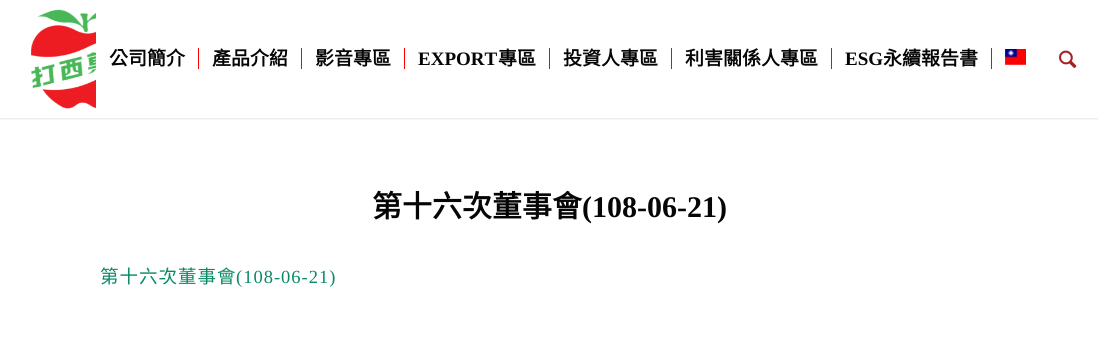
#include <cairo.h>
#include <math.h>
#include <stddef.h>

static cairo_t *ctx;

static void use_color(int r, int g, int b) {
    cairo_set_source_rgb(ctx, r / 255.0, g / 255.0, b / 255.0);
}

static void spaced_text(double x, double y, const char *s, double letter, double word) {
    cairo_move_to(ctx, x, y);
    while (*s) {
        char ch[5] = {0};
        int n = 0;
        do ch[n++] = *s++; while ((*s & 0xC0) == 0x80);
        cairo_show_text(ctx, ch);
        cairo_rel_move_to(ctx, letter + word * (*ch == ' '), 0);
    }
}

static void round_rect(double x, double y, double w, double h, double r) {
    cairo_new_sub_path(ctx);
    cairo_arc(ctx, x + w - r, y + h - r, r, 0, M_PI / 2);
    cairo_arc(ctx, x + r, y + h - r, r, M_PI / 2, M_PI);
    cairo_arc(ctx, x + r, y + r, r, M_PI, 1.5 * M_PI);
    cairo_arc(ctx, x + w - r, y + r, r, 1.5 * M_PI, 2 * M_PI);
    cairo_close_path(ctx);
}

static void shadow(double x, double y, double w, double h, double r, double blur, double alpha) {
    cairo_push_group_with_content(ctx, CAIRO_CONTENT_ALPHA);
    cairo_set_operator(ctx, CAIRO_OPERATOR_SOURCE);
    for (int i = 15; i >= -15 && fmin(w, h) + blur * i / 3 > 0; i -= 2) {
        double e = blur * i / 6;
        cairo_set_source_rgba(ctx, 0, 0, 0, alpha * erfc((i - 1) / 8.5) / 2);
        round_rect(x - e, y - e, w + 2 * e, h + 2 * e, fmax(0, fmin(r + e + blur * .6, fmin(w, h) / 2 + e)));
        cairo_fill(ctx);
    }
    cairo_pattern_t *soft = cairo_pop_group(ctx);
    cairo_mask(ctx, soft);
    cairo_pattern_destroy(soft);
}

static void picture(const char *path, double x, double y, double w, double h) {
    cairo_surface_t *image = cairo_image_surface_create_from_png(path);
    cairo_save(ctx);
    cairo_set_source_surface(ctx, image, x, y);
    cairo_rectangle(ctx, x, y, w, h);
    cairo_fill(ctx);
    cairo_restore(ctx);
    cairo_surface_destroy(image);
}

int main(void) {
    cairo_surface_t *surface = cairo_image_surface_create(CAIRO_FORMAT_RGB24, 1098, 337);
    ctx = cairo_create(surface);
    cairo_font_options_t *options = cairo_font_options_create();
    cairo_font_options_set_hint_metrics(options, CAIRO_HINT_METRICS_OFF);
    cairo_font_options_set_hint_style(options, CAIRO_HINT_STYLE_NONE);
    cairo_set_font_options(ctx, options);
    cairo_set_miter_limit(ctx, 4);
    use_color(255, 255, 255);
    cairo_paint(ctx);
    cairo_save(ctx);
    cairo_rectangle(ctx, 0, 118, 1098, 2);
    cairo_clip(ctx);
    use_color(0, 0, 0);
    shadow(-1, -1, 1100, 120, 0, 1, 0.1);
    cairo_restore(ctx);
    picture("img1.png", 31, 9, 65, 100);
    cairo_select_font_face(ctx, "Noto Sans CJK TC", CAIRO_FONT_SLANT_NORMAL, CAIRO_FONT_WEIGHT_BOLD);
    cairo_set_font_size(ctx, 19);
    use_color(5, 5, 5);
    cairo_move_to(ctx, 109, 65);
    cairo_show_text(ctx, "公司簡介");
    cairo_move_to(ctx, 212, 65);
    cairo_show_text(ctx, "產品介紹");
    use_color(255, 0, 0);
    cairo_rectangle(ctx, 198, 48, 1, 21);
    cairo_fill(ctx);
    use_color(5, 5, 5);
    cairo_move_to(ctx, 315, 65);
    cairo_show_text(ctx, "影音專區");
    use_color(255, 0, 0);
    cairo_rectangle(ctx, 301, 48, 1, 21);
    cairo_fill(ctx);
    cairo_select_font_face(ctx, "Liberation Serif", CAIRO_FONT_SLANT_NORMAL, CAIRO_FONT_WEIGHT_BOLD);
    use_color(5, 5, 5);
    cairo_move_to(ctx, 418, 65);
    cairo_show_text(ctx, "EXPORT");
    use_color(255, 0, 0);
    cairo_rectangle(ctx, 404, 48, 1, 21);
    cairo_fill(ctx);
    cairo_select_font_face(ctx, "Noto Sans CJK TC", CAIRO_FONT_SLANT_NORMAL, CAIRO_FONT_WEIGHT_BOLD);
    use_color(5, 5, 5);
    cairo_move_to(ctx, 498, 65);
    cairo_show_text(ctx, "專區");
    cairo_move_to(ctx, 563, 65);
    cairo_show_text(ctx, "投資人專區");
    use_color(255, 0, 0);
    cairo_rectangle(ctx, 549, 48, 1, 21);
    cairo_fill(ctx);
    use_color(5, 5, 5);
    cairo_move_to(ctx, 685, 65);
    cairo_show_text(ctx, "利害關係人專區");
    use_color(255, 0, 0);
    cairo_rectangle(ctx, 671, 48, 1, 21);
    cairo_fill(ctx);
    cairo_select_font_face(ctx, "Liberation Serif", CAIRO_FONT_SLANT_NORMAL, CAIRO_FONT_WEIGHT_BOLD);
    use_color(5, 5, 5);
    cairo_move_to(ctx, 845, 65);
    cairo_show_text(ctx, "ESG");
    use_color(255, 0, 0);
    cairo_rectangle(ctx, 831, 48, 1, 21);
    cairo_fill(ctx);
    cairo_select_font_face(ctx, "Noto Sans CJK TC", CAIRO_FONT_SLANT_NORMAL, CAIRO_FONT_WEIGHT_BOLD);
    use_color(5, 5, 5);
    cairo_move_to(ctx, 883, 65);
    cairo_show_text(ctx, "永續報告書");
    use_color(255, 0, 0);
    cairo_rectangle(ctx, 991, 48, 1, 21);
    cairo_fill(ctx);
    picture("img2.png", 1005, 49, 21, 16);
    picture("img3.png", 1059, 50, 18, 18);
    cairo_set_font_size(ctx, 30);
    use_color(5, 5, 5);
    cairo_move_to(ctx, 372, 217);
    cairo_show_text(ctx, "第十六次董事會");
    cairo_select_font_face(ctx, "Liberation Serif", CAIRO_FONT_SLANT_NORMAL, CAIRO_FONT_WEIGHT_BOLD);
    cairo_move_to(ctx, 582, 217);
    cairo_show_text(ctx, "(108-06-21)");
    cairo_select_font_face(ctx, "Noto Sans CJK TC", CAIRO_FONT_SLANT_NORMAL, CAIRO_FONT_WEIGHT_NORMAL);
    cairo_set_font_size(ctx, 18.5);
    use_color(9, 137, 103);
    spaced_text(100, 283, "第十六次董事會", 1, 0);
    cairo_select_font_face(ctx, "Liberation Serif", CAIRO_FONT_SLANT_NORMAL, CAIRO_FONT_WEIGHT_NORMAL);
    spaced_text(236, 283, "(108-06-21)", 1, 0);
    cairo_surface_write_to_png(surface, "result.png");
    cairo_font_options_destroy(options);
    cairo_destroy(ctx);
    cairo_surface_destroy(surface);
    return 0;
}
